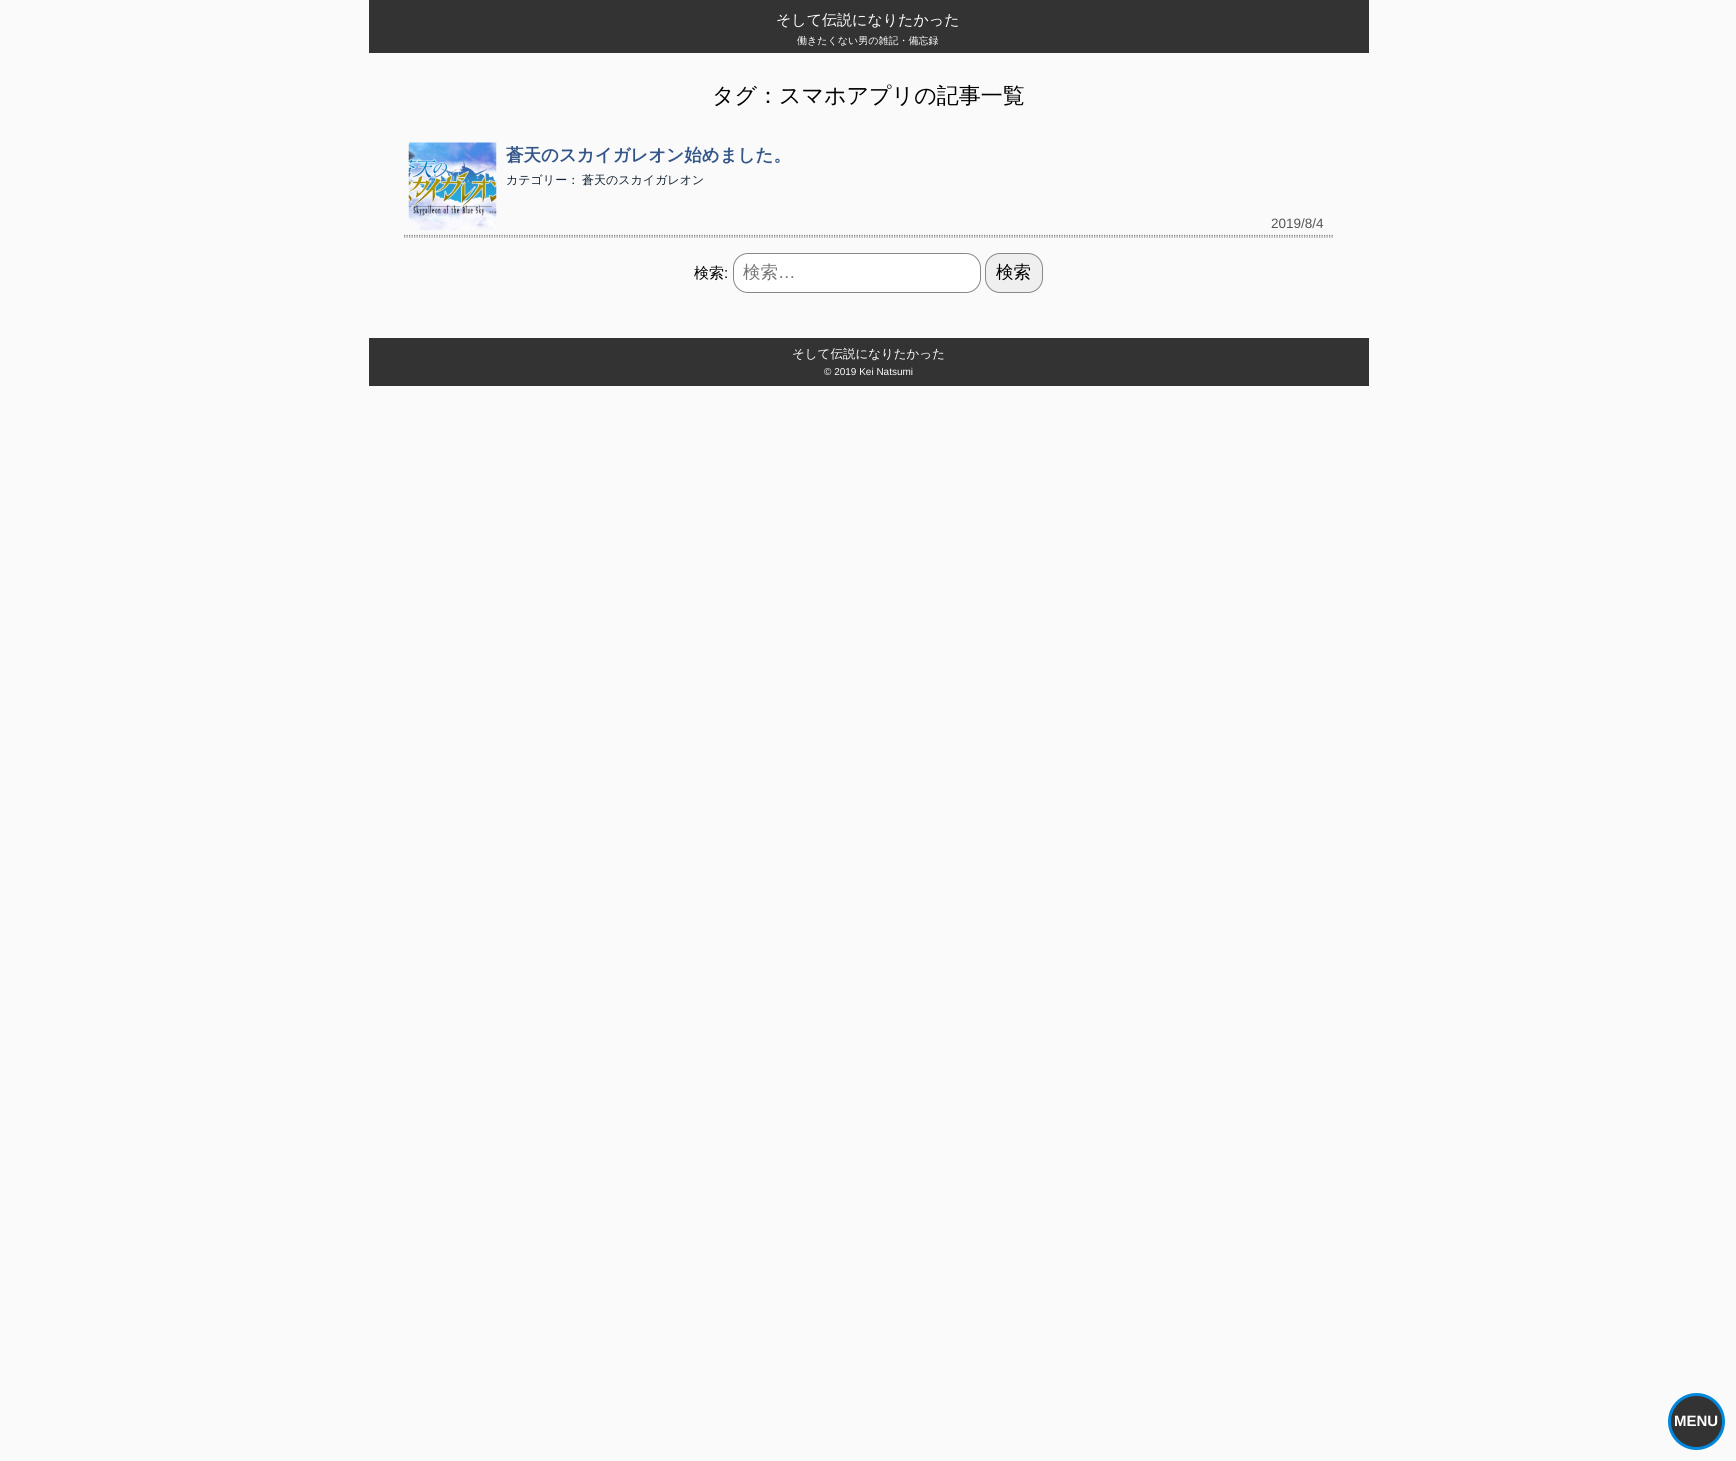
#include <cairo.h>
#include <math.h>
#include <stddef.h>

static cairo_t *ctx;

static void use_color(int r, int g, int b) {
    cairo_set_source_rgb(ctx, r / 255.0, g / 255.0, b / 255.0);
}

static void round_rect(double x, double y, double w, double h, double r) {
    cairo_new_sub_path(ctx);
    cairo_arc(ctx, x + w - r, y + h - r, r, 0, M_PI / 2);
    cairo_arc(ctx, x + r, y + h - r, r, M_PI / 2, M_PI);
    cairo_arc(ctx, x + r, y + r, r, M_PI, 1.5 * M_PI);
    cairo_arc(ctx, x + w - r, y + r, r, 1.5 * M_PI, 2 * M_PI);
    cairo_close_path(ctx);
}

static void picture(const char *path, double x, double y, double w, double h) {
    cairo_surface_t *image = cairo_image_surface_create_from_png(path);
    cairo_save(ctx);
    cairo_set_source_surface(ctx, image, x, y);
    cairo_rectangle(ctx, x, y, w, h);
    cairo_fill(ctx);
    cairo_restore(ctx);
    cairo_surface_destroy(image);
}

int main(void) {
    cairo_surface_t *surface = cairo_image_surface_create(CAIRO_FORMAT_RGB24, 1736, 1461);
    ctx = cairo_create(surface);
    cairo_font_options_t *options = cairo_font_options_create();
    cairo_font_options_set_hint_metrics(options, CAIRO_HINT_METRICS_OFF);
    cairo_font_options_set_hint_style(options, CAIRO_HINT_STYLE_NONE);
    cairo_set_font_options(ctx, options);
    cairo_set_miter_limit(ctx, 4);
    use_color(250, 250, 250);
    cairo_paint(ctx);
    use_color(51, 51, 51);
    cairo_rectangle(ctx, 369, 0, 1000, 53);
    cairo_fill(ctx);
    cairo_select_font_face(ctx, "WenQuanYi Zen Hei Medium", CAIRO_FONT_SLANT_NORMAL, CAIRO_FONT_WEIGHT_NORMAL);
    cairo_set_font_size(ctx, 15);
    use_color(255, 255, 255);
    cairo_move_to(ctx, 776, 25);
    cairo_show_text(ctx, "そして伝説になりたかった");
    cairo_set_font_size(ctx, 10);
    cairo_move_to(ctx, 797, 44);
    cairo_show_text(ctx, "働きたくない男の雑記・備忘録");
    cairo_set_font_size(ctx, 22);
    use_color(0, 0, 0);
    cairo_move_to(ctx, 712, 103);
    cairo_show_text(ctx, "タグ：スマホアプリの記事一覧");
    cairo_new_path(ctx);
    cairo_move_to(ctx, 404, 235.5);
    cairo_line_to(ctx, 1334, 235.5);
    use_color(136, 136, 136);
    cairo_set_line_width(ctx, 1.2);
    cairo_set_dash(ctx, (double[]){1.25, 1.25}, 2, 0);
    cairo_stroke(ctx);
    picture("img1.png", 408, 142, 89, 88);
    cairo_select_font_face(ctx, "WenQuanYi Zen Hei", CAIRO_FONT_SLANT_NORMAL, CAIRO_FONT_WEIGHT_BOLD);
    cairo_set_font_size(ctx, 17.5);
    use_color(51, 85, 136);
    cairo_move_to(ctx, 506, 161);
    cairo_show_text(ctx, "蒼天のスカイガレオン始めました。");
    cairo_select_font_face(ctx, "WenQuanYi Zen Hei Medium", CAIRO_FONT_SLANT_NORMAL, CAIRO_FONT_WEIGHT_NORMAL);
    cairo_set_font_size(ctx, 12);
    use_color(17, 34, 51);
    cairo_move_to(ctx, 506, 184);
    cairo_show_text(ctx, "カテゴリー：");
    cairo_move_to(ctx, 582, 184);
    cairo_show_text(ctx, "蒼天のスカイガレオン");
    cairo_select_font_face(ctx, "Liberation Sans", CAIRO_FONT_SLANT_NORMAL, CAIRO_FONT_WEIGHT_NORMAL);
    cairo_set_font_size(ctx, 13.5);
    use_color(85, 85, 85);
    cairo_move_to(ctx, 1271, 228);
    cairo_show_text(ctx, "2019/8/4");
    cairo_new_path(ctx);
    cairo_move_to(ctx, 404, 237);
    cairo_line_to(ctx, 1334, 237);
    use_color(136, 136, 136);
    cairo_stroke(ctx);
    cairo_select_font_face(ctx, "WenQuanYi Zen Hei Medium", CAIRO_FONT_SLANT_NORMAL, CAIRO_FONT_WEIGHT_NORMAL);
    cairo_set_font_size(ctx, 15);
    use_color(0, 0, 0);
    cairo_move_to(ctx, 694, 278);
    cairo_show_text(ctx, "検索");
    cairo_select_font_face(ctx, "Liberation Sans", CAIRO_FONT_SLANT_NORMAL, CAIRO_FONT_WEIGHT_NORMAL);
    cairo_move_to(ctx, 724, 278);
    cairo_show_text(ctx, ":");
    use_color(255, 255, 255);
    round_rect(733.5, 253.5, 247, 39, 14.5);
    cairo_fill_preserve(ctx);
    use_color(136, 136, 136);
    cairo_set_line_width(ctx, 1);
    cairo_set_dash(ctx, NULL, 0, 0);
    cairo_stroke(ctx);
    cairo_select_font_face(ctx, "WenQuanYi Zen Hei Medium", CAIRO_FONT_SLANT_NORMAL, CAIRO_FONT_WEIGHT_NORMAL);
    cairo_set_font_size(ctx, 17.5);
    use_color(117, 117, 117);
    cairo_move_to(ctx, 743, 278);
    cairo_show_text(ctx, "検索");
    cairo_select_font_face(ctx, "Liberation Sans", CAIRO_FONT_SLANT_NORMAL, CAIRO_FONT_WEIGHT_NORMAL);
    cairo_move_to(ctx, 778, 278);
    cairo_show_text(ctx, "…");
    use_color(239, 239, 239);
    round_rect(985.5, 253.5, 57, 39, 14.5);
    cairo_fill_preserve(ctx);
    use_color(136, 136, 136);
    cairo_stroke(ctx);
    cairo_select_font_face(ctx, "WenQuanYi Zen Hei Medium", CAIRO_FONT_SLANT_NORMAL, CAIRO_FONT_WEIGHT_NORMAL);
    use_color(0, 0, 0);
    cairo_move_to(ctx, 996, 278);
    cairo_show_text(ctx, "検索");
    use_color(51, 51, 51);
    cairo_rectangle(ctx, 369, 338, 1000, 48);
    cairo_fill(ctx);
    cairo_set_font_size(ctx, 12.5);
    use_color(255, 255, 255);
    cairo_move_to(ctx, 792, 358);
    cairo_show_text(ctx, "そして伝説になりたかった");
    cairo_select_font_face(ctx, "Liberation Sans", CAIRO_FONT_SLANT_NORMAL, CAIRO_FONT_WEIGHT_NORMAL);
    cairo_set_font_size(ctx, 10);
    cairo_move_to(ctx, 824, 375);
    cairo_show_text(ctx, "© 2019 Kei Natsumi");
    use_color(51, 51, 51);
    cairo_new_path(ctx);
    cairo_arc(ctx, 1696.5, 1421.5, 27, 0, 2 * M_PI);
    cairo_fill_preserve(ctx);
    use_color(0, 136, 221);
    cairo_set_line_width(ctx, 3);
    cairo_stroke(ctx);
    cairo_select_font_face(ctx, "Liberation Sans", CAIRO_FONT_SLANT_NORMAL, CAIRO_FONT_WEIGHT_BOLD);
    cairo_set_font_size(ctx, 15);
    use_color(255, 255, 255);
    cairo_move_to(ctx, 1674, 1426);
    cairo_show_text(ctx, "MENU");
    cairo_surface_write_to_png(surface, "result.png");
    cairo_font_options_destroy(options);
    cairo_destroy(ctx);
    cairo_surface_destroy(surface);
    return 0;
}
